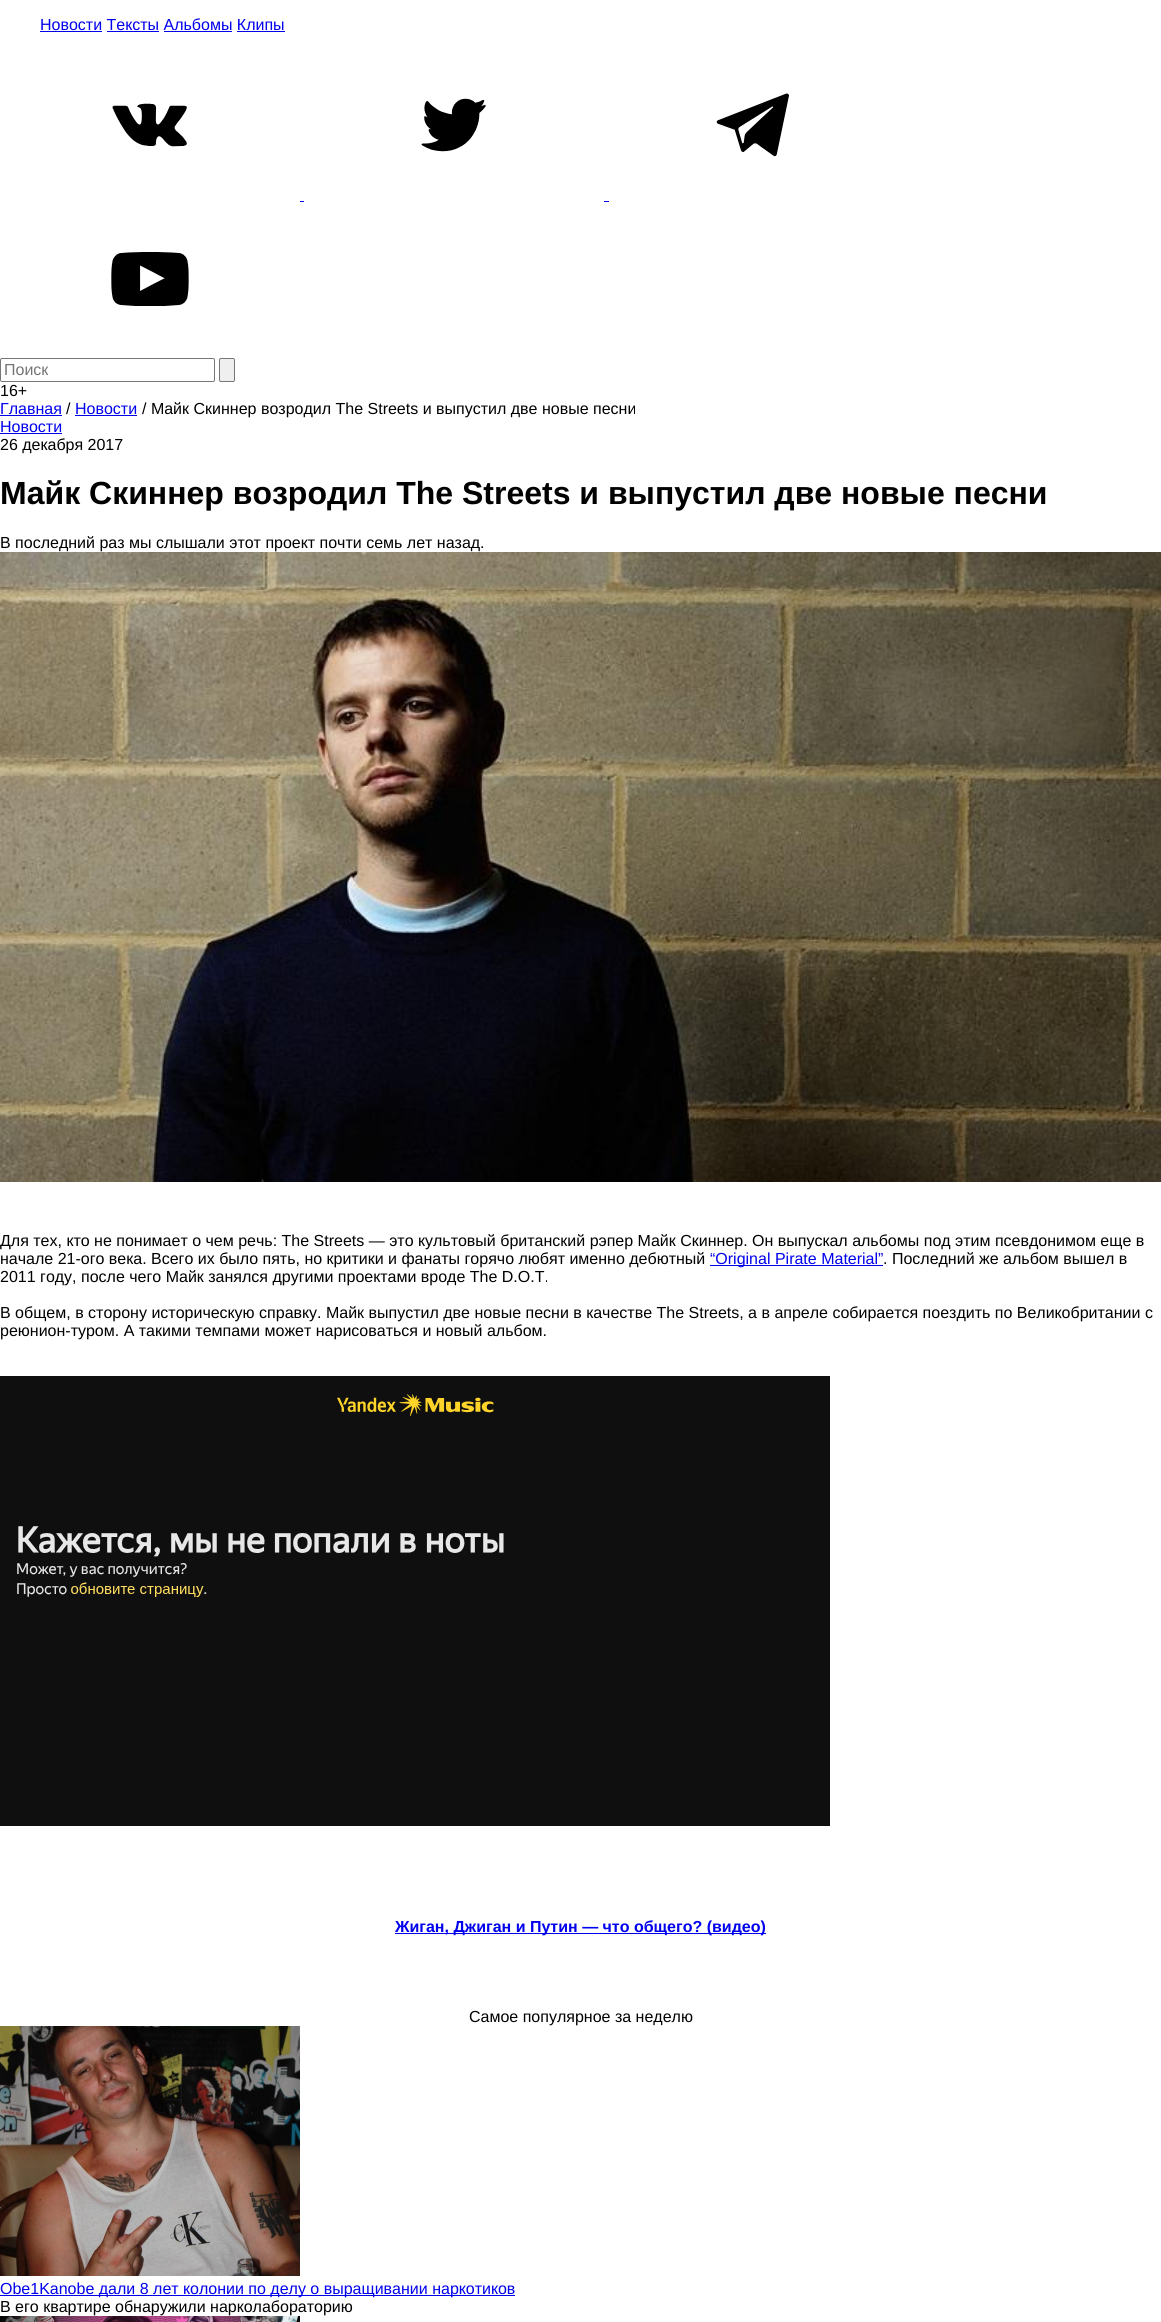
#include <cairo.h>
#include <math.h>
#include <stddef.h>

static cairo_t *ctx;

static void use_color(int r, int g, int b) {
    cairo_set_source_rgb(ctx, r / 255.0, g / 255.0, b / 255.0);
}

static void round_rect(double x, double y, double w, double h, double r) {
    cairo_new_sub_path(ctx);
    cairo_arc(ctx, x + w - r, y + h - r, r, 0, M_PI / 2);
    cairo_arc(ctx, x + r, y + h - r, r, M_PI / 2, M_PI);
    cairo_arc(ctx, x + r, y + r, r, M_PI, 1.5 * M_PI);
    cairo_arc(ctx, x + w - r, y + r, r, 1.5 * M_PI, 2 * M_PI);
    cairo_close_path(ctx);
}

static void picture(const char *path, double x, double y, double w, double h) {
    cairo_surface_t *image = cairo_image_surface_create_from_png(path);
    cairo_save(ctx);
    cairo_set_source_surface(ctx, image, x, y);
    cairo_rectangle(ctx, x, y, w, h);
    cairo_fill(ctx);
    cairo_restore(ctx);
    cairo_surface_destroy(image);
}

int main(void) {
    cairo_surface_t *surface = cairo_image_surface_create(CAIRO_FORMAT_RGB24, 1161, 2322);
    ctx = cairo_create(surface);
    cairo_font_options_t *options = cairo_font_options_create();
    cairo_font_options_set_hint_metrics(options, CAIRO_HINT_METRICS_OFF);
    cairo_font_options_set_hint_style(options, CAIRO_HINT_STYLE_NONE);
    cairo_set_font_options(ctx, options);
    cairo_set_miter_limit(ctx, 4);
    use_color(255, 255, 255);
    cairo_paint(ctx);
    cairo_select_font_face(ctx, "Liberation Sans", CAIRO_FONT_SLANT_NORMAL, CAIRO_FONT_WEIGHT_NORMAL);
    cairo_set_font_size(ctx, 16);
    use_color(0, 0, 238);
    cairo_move_to(ctx, 40, 30);
    cairo_show_text(ctx, "Новости Тексты Альбомы Клипы");
    cairo_rectangle(ctx, 40, 31, 62, 1);
    cairo_fill(ctx);
    cairo_rectangle(ctx, 107, 31, 52, 1);
    cairo_fill(ctx);
    cairo_rectangle(ctx, 164, 31, 68, 1);
    cairo_fill(ctx);
    cairo_rectangle(ctx, 237, 31, 48, 1);
    cairo_fill(ctx);
    picture("img1.png", 112, 103, 75, 44);
    picture("img2.png", 421, 98, 65, 54);
    picture("img3.png", 716, 93, 73, 64);
    cairo_rectangle(ctx, 300, 201, 4, 1);
    cairo_fill(ctx);
    cairo_rectangle(ctx, 604, 201, 5, 1);
    cairo_fill(ctx);
    picture("img4.png", 111, 252, 78, 54);
    round_rect(0.5, 358.5, 214, 23, 1.5);
    use_color(118, 118, 118);
    cairo_set_line_width(ctx, 1);
    cairo_stroke(ctx);
    use_color(117, 117, 117);
    cairo_move_to(ctx, 4, 375);
    cairo_show_text(ctx, "Поиск");
    use_color(239, 239, 239);
    round_rect(219.5, 358.5, 15, 23, 1.5);
    cairo_fill_preserve(ctx);
    use_color(118, 118, 118);
    cairo_stroke(ctx);
    use_color(0, 0, 0);
    cairo_move_to(ctx, 0, 396);
    cairo_show_text(ctx, "16+");
    use_color(0, 0, 238);
    cairo_move_to(ctx, 0, 414);
    cairo_show_text(ctx, "Главная");
    cairo_rectangle(ctx, 0, 415, 62, 1);
    cairo_fill(ctx);
    use_color(0, 0, 0);
    cairo_move_to(ctx, 66, 414);
    cairo_show_text(ctx, "/");
    use_color(0, 0, 238);
    cairo_move_to(ctx, 75, 414);
    cairo_show_text(ctx, "Новости");
    cairo_rectangle(ctx, 75, 415, 62, 1);
    cairo_fill(ctx);
    use_color(0, 0, 0);
    cairo_move_to(ctx, 142, 414);
    cairo_show_text(ctx, "/ Майк Скиннер возродил The Streets и выпустил две новые песни");
    use_color(0, 0, 238);
    cairo_move_to(ctx, 0, 432);
    cairo_show_text(ctx, "Новости");
    cairo_rectangle(ctx, 0, 433, 62, 1);
    cairo_fill(ctx);
    use_color(0, 0, 0);
    cairo_move_to(ctx, 0, 450);
    cairo_show_text(ctx, "26 декабря 2017");
    cairo_select_font_face(ctx, "Liberation Sans", CAIRO_FONT_SLANT_NORMAL, CAIRO_FONT_WEIGHT_BOLD);
    cairo_set_font_size(ctx, 32);
    cairo_move_to(ctx, 0, 504);
    cairo_show_text(ctx, "Майк Скиннер возродил The Streets и выпустил две новые песни");
    cairo_select_font_face(ctx, "Liberation Sans", CAIRO_FONT_SLANT_NORMAL, CAIRO_FONT_WEIGHT_NORMAL);
    cairo_set_font_size(ctx, 16);
    cairo_move_to(ctx, 0, 548);
    cairo_show_text(ctx, "В последний раз мы слышали этот проект почти семь лет назад.");
    picture("img5.png", 0, 552, 1161, 630);
    cairo_move_to(ctx, 0, 1246);
    cairo_show_text(ctx, "Для тех, кто не понимает о чем речь: The Streets — это культовый британский рэпер Майк Скиннер. Он выпускал альбомы под этим псевдонимом еще в");
    cairo_move_to(ctx, 0, 1264);
    cairo_show_text(ctx, "начале 21-ого века. Всего их было пять, но критики и фанаты горячо любят именно дебютный");
    use_color(0, 0, 238);
    cairo_rectangle(ctx, 710, 1265, 173, 1);
    cairo_fill(ctx);
    cairo_move_to(ctx, 710, 1264);
    cairo_show_text(ctx, "“Original Pirate Material”");
    use_color(0, 0, 0);
    cairo_move_to(ctx, 883, 1264);
    cairo_show_text(ctx, ". Последний же альбом вышел в");
    cairo_move_to(ctx, 0, 1282);
    cairo_show_text(ctx, "2011 году, после чего Майк занялся другими проектами вроде The D.O.T.");
    cairo_move_to(ctx, 0, 1318);
    cairo_show_text(ctx, "В общем, в сторону историческую справку. Майк выпустил две новые песни в качестве The Streets, а в апреле собирается поездить по Великобритании с");
    cairo_move_to(ctx, 0, 1336);
    cairo_show_text(ctx, "реюнион-туром. А такими темпами может нарисоваться и новый альбом.");
    picture("img6.png", 0, 1376, 830, 450);
    use_color(0, 0, 238);
    cairo_rectangle(ctx, 395, 1933, 371, 1);
    cairo_fill(ctx);
    cairo_select_font_face(ctx, "Liberation Sans", CAIRO_FONT_SLANT_NORMAL, CAIRO_FONT_WEIGHT_BOLD);
    cairo_move_to(ctx, 395, 1932);
    cairo_show_text(ctx, "Жиган, Джиган и Путин — что общего? (видео)");
    cairo_select_font_face(ctx, "Liberation Sans", CAIRO_FONT_SLANT_NORMAL, CAIRO_FONT_WEIGHT_NORMAL);
    use_color(0, 0, 0);
    cairo_move_to(ctx, 469, 2022);
    cairo_show_text(ctx, "Самое популярное за неделю");
    picture("img7.png", 0, 2026, 300, 250);
    use_color(0, 0, 238);
    cairo_rectangle(ctx, 0, 2295, 515, 1);
    cairo_fill(ctx);
    cairo_move_to(ctx, 0, 2294);
    cairo_show_text(ctx, "Obe1Kanobe дали 8 лет колонии по делу о выращивании наркотиков");
    use_color(0, 0, 0);
    cairo_move_to(ctx, 0, 2312);
    cairo_show_text(ctx, "В его квартире обнаружили нарколабораторию");
    picture("img8.png", 0, 2316, 300, 6);
    cairo_surface_write_to_png(surface, "result.png");
    cairo_font_options_destroy(options);
    cairo_destroy(ctx);
    cairo_surface_destroy(surface);
    return 0;
}
